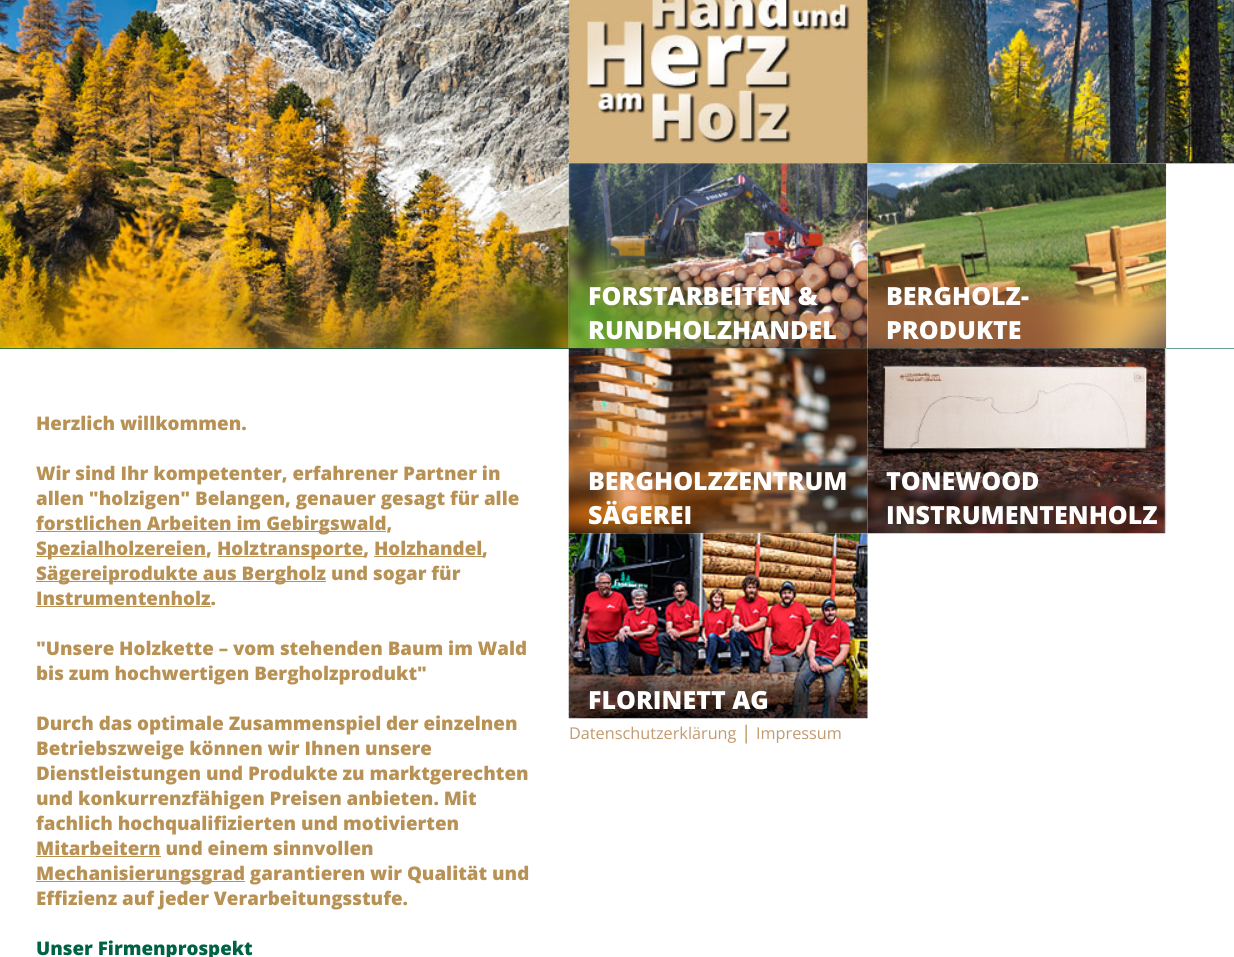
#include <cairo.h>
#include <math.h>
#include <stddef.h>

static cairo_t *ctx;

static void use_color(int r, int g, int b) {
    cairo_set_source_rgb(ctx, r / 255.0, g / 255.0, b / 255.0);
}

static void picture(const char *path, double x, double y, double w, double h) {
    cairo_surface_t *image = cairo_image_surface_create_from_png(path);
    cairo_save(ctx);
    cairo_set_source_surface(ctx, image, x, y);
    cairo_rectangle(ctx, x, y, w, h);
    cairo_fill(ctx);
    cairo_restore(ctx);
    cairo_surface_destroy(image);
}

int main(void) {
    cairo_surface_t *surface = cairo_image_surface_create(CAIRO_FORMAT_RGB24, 1234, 957);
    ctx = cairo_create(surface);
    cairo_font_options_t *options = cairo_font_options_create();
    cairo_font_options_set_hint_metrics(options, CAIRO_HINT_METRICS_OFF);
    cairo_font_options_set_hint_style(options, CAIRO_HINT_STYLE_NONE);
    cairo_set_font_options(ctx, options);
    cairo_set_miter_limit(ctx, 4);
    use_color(255, 255, 255);
    cairo_paint(ctx);
    use_color(0, 95, 66);
    cairo_rectangle(ctx, 0, 348, 1234, 1);
    cairo_fill(ctx);
    picture("img1.png", 617, 348, 617, 1);
    picture("img2.png", 0, 0, 1234, 349);
    cairo_select_font_face(ctx, "Open Sans ExtraBold", CAIRO_FONT_SLANT_NORMAL, CAIRO_FONT_WEIGHT_NORMAL);
    cairo_set_font_size(ctx, 18.75);
    use_color(184, 145, 85);
    cairo_move_to(ctx, 36, 430);
    cairo_show_text(ctx, "Herzlich willkommen.");
    cairo_move_to(ctx, 36, 480);
    cairo_show_text(ctx, "Wir sind Ihr kompetenter, erfahrener Partner in");
    cairo_move_to(ctx, 36, 505);
    cairo_show_text(ctx, "allen \"holzigen\" Belangen, genauer gesagt für alle");
    cairo_rectangle(ctx, 36, 531, 350, 1);
    cairo_fill(ctx);
    cairo_move_to(ctx, 36, 530);
    cairo_show_text(ctx, "forstlichen Arbeiten im Gebirgswald,");
    cairo_rectangle(ctx, 36, 556, 170, 1);
    cairo_fill(ctx);
    cairo_move_to(ctx, 36, 555);
    cairo_show_text(ctx, "Spezialholzereien,");
    cairo_rectangle(ctx, 218, 556, 146, 1);
    cairo_fill(ctx);
    cairo_move_to(ctx, 217, 555);
    cairo_show_text(ctx, "Holztransporte, Holzhandel");
    cairo_rectangle(ctx, 374, 556, 109, 1);
    cairo_fill(ctx);
    cairo_move_to(ctx, 482, 555);
    cairo_show_text(ctx, ",");
    cairo_rectangle(ctx, 36, 581, 290, 1);
    cairo_fill(ctx);
    cairo_move_to(ctx, 36, 580);
    cairo_show_text(ctx, "Sägereiprodukte aus Bergholz und sogar für");
    cairo_move_to(ctx, 36, 605);
    cairo_show_text(ctx, "Instrumentenholz.");
    cairo_rectangle(ctx, 36, 606, 175, 1);
    cairo_fill(ctx);
    cairo_move_to(ctx, 36, 655);
    cairo_show_text(ctx, "\"Unsere Holzkette – vom stehenden Baum im Wald");
    cairo_move_to(ctx, 36, 680);
    cairo_show_text(ctx, "bis zum hochwertigen Bergholzprodukt\"");
    cairo_move_to(ctx, 36, 730);
    cairo_show_text(ctx, "Durch das optimale Zusammenspiel der einzelnen");
    cairo_move_to(ctx, 36, 755);
    cairo_show_text(ctx, "Betriebszweige können wir Ihnen unsere");
    cairo_move_to(ctx, 36, 780);
    cairo_show_text(ctx, "Dienstleistungen und Produkte zu marktgerechten");
    cairo_move_to(ctx, 36, 805);
    cairo_show_text(ctx, "und konkurrenzfähigen Preisen anbieten. Mit");
    cairo_move_to(ctx, 36, 830);
    cairo_show_text(ctx, "fachlich hochqualifizierten und motivierten");
    cairo_move_to(ctx, 36, 855);
    cairo_show_text(ctx, "Mitarbeitern und einem sinnvollen");
    cairo_rectangle(ctx, 36, 856, 125, 1);
    cairo_fill(ctx);
    cairo_rectangle(ctx, 36, 881, 209, 1);
    cairo_fill(ctx);
    cairo_move_to(ctx, 36, 880);
    cairo_show_text(ctx, "Mechanisierungsgrad garantieren wir Qualität und");
    cairo_move_to(ctx, 36, 905);
    cairo_show_text(ctx, "Effizienz auf jeder Verarbeitungsstufe.");
    use_color(0, 98, 69);
    cairo_move_to(ctx, 36, 955);
    cairo_show_text(ctx, "Unser Firmenprospekt");
    picture("img3.png", 568, 163, 300, 186);
    cairo_set_font_size(ctx, 25);
    use_color(255, 255, 255);
    cairo_move_to(ctx, 588, 305);
    cairo_show_text(ctx, "FORSTARBEITEN &");
    cairo_move_to(ctx, 588, 339);
    cairo_show_text(ctx, "RUNDHOLZHANDEL");
    picture("img5.png", 568, 348, 300, 186);
    picture("img6.png", 867, 348, 300, 186);
    picture("img4.png", 867, 163, 300, 186);
    cairo_move_to(ctx, 886, 305);
    cairo_show_text(ctx, "BERGHOLZ-");
    cairo_move_to(ctx, 886, 339);
    cairo_show_text(ctx, "PRODUKTE");
    cairo_move_to(ctx, 588, 490);
    cairo_show_text(ctx, "BERGHOLZZENTRUM");
    cairo_move_to(ctx, 588, 524);
    cairo_show_text(ctx, "SÄGEREI");
    cairo_move_to(ctx, 886, 490);
    cairo_show_text(ctx, "TONEWOOD");
    cairo_move_to(ctx, 886, 524);
    cairo_show_text(ctx, "INSTRUMENTENHOLZ");
    picture("img7.png", 568, 533, 300, 186);
    cairo_move_to(ctx, 588, 709);
    cairo_show_text(ctx, "FLORINETT AG");
    cairo_select_font_face(ctx, "Open Sans", CAIRO_FONT_SLANT_NORMAL, CAIRO_FONT_WEIGHT_NORMAL);
    cairo_set_font_size(ctx, 16.25);
    use_color(193, 154, 111);
    cairo_move_to(ctx, 569, 739);
    cairo_show_text(ctx, "Datenschutzerklärung");
    cairo_set_font_size(ctx, 18.75);
    use_color(184, 145, 85);
    cairo_move_to(ctx, 741, 739);
    cairo_show_text(ctx, "|");
    cairo_set_font_size(ctx, 16.25);
    use_color(193, 154, 111);
    cairo_move_to(ctx, 756, 739);
    cairo_show_text(ctx, "Impressum");
    cairo_surface_write_to_png(surface, "result.png");
    cairo_font_options_destroy(options);
    cairo_destroy(ctx);
    cairo_surface_destroy(surface);
    return 0;
}
